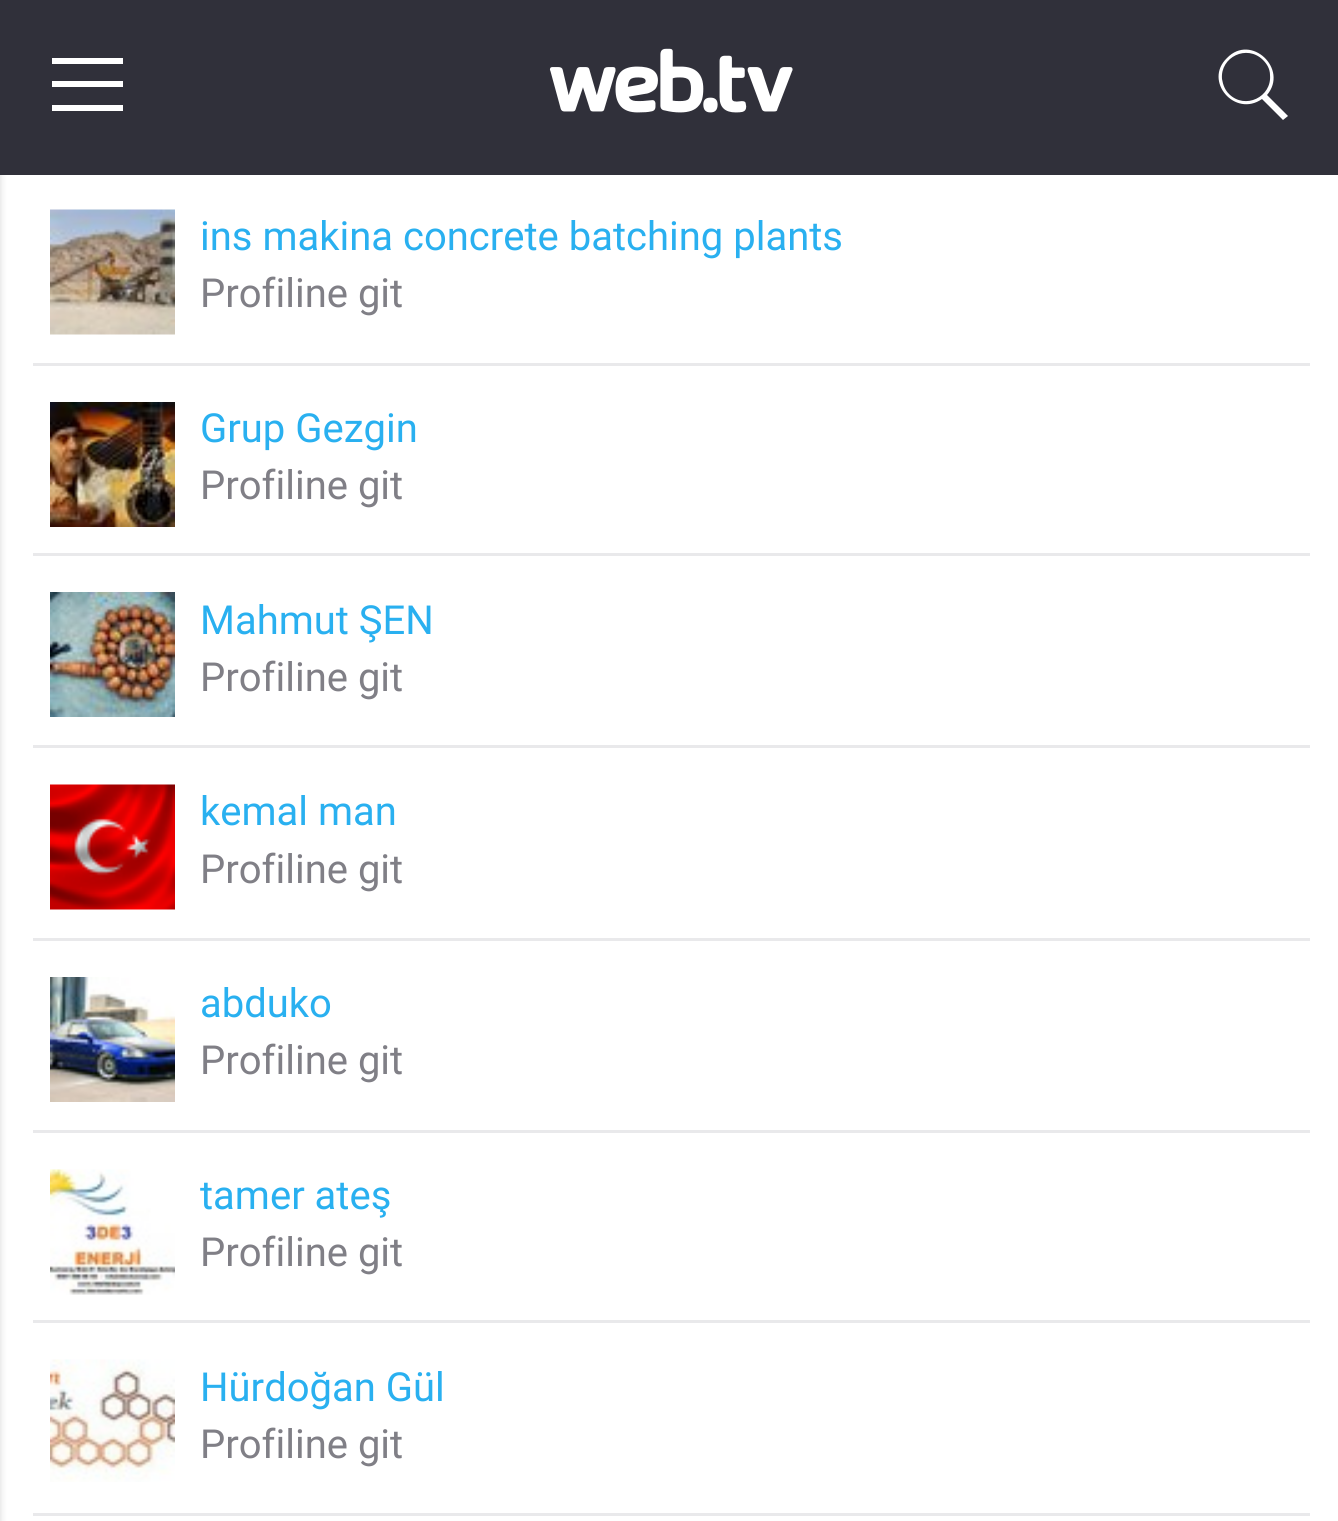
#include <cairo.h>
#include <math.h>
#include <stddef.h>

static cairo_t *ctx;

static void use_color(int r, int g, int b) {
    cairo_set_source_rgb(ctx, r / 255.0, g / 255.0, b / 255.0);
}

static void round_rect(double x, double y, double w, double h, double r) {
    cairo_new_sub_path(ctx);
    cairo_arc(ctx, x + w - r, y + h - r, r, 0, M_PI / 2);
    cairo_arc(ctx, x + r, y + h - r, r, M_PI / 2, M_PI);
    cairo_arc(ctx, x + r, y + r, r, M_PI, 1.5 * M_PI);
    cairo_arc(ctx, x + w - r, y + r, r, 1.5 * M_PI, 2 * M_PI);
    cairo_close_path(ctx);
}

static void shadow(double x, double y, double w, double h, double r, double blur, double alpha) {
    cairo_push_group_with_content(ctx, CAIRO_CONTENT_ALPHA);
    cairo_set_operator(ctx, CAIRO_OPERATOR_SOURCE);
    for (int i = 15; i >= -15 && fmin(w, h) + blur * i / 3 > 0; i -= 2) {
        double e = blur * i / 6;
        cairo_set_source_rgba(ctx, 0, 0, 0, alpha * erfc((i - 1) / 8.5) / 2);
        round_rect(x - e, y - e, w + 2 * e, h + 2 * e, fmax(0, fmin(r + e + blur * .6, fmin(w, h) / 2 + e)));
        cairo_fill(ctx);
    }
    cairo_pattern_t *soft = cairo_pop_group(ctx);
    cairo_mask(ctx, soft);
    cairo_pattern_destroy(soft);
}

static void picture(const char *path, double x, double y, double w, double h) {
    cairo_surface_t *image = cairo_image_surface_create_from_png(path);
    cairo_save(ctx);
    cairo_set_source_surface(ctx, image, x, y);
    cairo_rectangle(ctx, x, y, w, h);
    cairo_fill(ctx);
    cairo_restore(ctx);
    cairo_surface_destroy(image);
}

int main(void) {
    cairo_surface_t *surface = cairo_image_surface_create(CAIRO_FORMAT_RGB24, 1338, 1521);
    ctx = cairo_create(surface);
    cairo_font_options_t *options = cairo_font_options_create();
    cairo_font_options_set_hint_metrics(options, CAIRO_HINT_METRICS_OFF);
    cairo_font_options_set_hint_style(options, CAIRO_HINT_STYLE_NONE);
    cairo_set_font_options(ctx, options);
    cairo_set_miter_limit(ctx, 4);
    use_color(255, 255, 255);
    cairo_paint(ctx);
    use_color(0, 0, 0);
    shadow(-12, 3, 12, 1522, 0, 4, 0.15);
    use_color(48, 48, 58);
    cairo_rectangle(ctx, 0, 0, 1338, 175);
    cairo_fill(ctx);
    use_color(255, 255, 255);
    cairo_new_path(ctx);
    cairo_move_to(ctx, 52, 58);
    cairo_line_to(ctx, 123, 58);
    cairo_line_to(ctx, 123, 64);
    cairo_line_to(ctx, 52, 64);
    cairo_close_path(ctx);
    cairo_move_to(ctx, 52, 81);
    cairo_line_to(ctx, 123, 81);
    cairo_line_to(ctx, 123, 87);
    cairo_line_to(ctx, 52, 87);
    cairo_close_path(ctx);
    cairo_move_to(ctx, 52, 105);
    cairo_line_to(ctx, 123, 105);
    cairo_line_to(ctx, 123, 111);
    cairo_line_to(ctx, 52, 111);
    cairo_close_path(ctx);
    cairo_fill(ctx);
    picture("img1.png", 549, 48, 244, 65);
    cairo_new_path(ctx);
    cairo_move_to(ctx, 1227, 58);
    cairo_curve_to(ctx, 1251, 33, 1289, 69, 1267, 95);
    cairo_line_to(ctx, 1288, 116);
    cairo_line_to(ctx, 1283, 120);
    cairo_line_to(ctx, 1262, 99);
    cairo_curve_to(ctx, 1235, 118, 1203, 81, 1227, 58);
    cairo_close_path(ctx);
    cairo_move_to(ctx, 1263, 60);
    cairo_curve_to(ctx, 1247, 44, 1220, 57, 1222, 79);
    cairo_curve_to(ctx, 1223, 85, 1225, 90, 1229, 94);
    cairo_curve_to(ctx, 1245, 110, 1272, 97, 1270, 75);
    cairo_curve_to(ctx, 1270, 69, 1267, 64, 1263, 60);
    cairo_close_path(ctx);
    cairo_fill(ctx);
    use_color(233, 233, 235);
    cairo_rectangle(ctx, 33, 363, 1277, 3);
    cairo_fill(ctx);
    picture("img2.png", 50, 209, 125, 126);
    cairo_select_font_face(ctx, "Roboto", CAIRO_FONT_SLANT_NORMAL, CAIRO_FONT_WEIGHT_NORMAL);
    cairo_set_font_size(ctx, 40);
    use_color(41, 176, 240);
    cairo_move_to(ctx, 200, 250);
    cairo_show_text(ctx, "ins makina concrete batching plants");
    use_color(128, 127, 134);
    cairo_move_to(ctx, 200, 307);
    cairo_show_text(ctx, "Profiline git");
    use_color(233, 233, 235);
    cairo_rectangle(ctx, 33, 553, 1277, 3);
    cairo_fill(ctx);
    picture("img3.png", 50, 402, 125, 125);
    use_color(41, 176, 240);
    cairo_move_to(ctx, 200, 442);
    cairo_show_text(ctx, "Grup Gezgin");
    use_color(128, 127, 134);
    cairo_move_to(ctx, 200, 499);
    cairo_show_text(ctx, "Profiline git");
    use_color(233, 233, 235);
    cairo_rectangle(ctx, 33, 745, 1277, 3);
    cairo_fill(ctx);
    picture("img4.png", 50, 592, 125, 125);
    use_color(41, 176, 240);
    cairo_move_to(ctx, 200, 634);
    cairo_show_text(ctx, "Mahmut ŞEN");
    use_color(128, 127, 134);
    cairo_move_to(ctx, 200, 691);
    cairo_show_text(ctx, "Profiline git");
    use_color(233, 233, 235);
    cairo_rectangle(ctx, 33, 938, 1277, 3);
    cairo_fill(ctx);
    picture("img5.png", 50, 784, 125, 126);
    use_color(41, 176, 240);
    cairo_move_to(ctx, 200, 825);
    cairo_show_text(ctx, "kemal man");
    use_color(128, 127, 134);
    cairo_move_to(ctx, 200, 883);
    cairo_show_text(ctx, "Profiline git");
    use_color(233, 233, 235);
    cairo_rectangle(ctx, 33, 1130, 1277, 3);
    cairo_fill(ctx);
    picture("img6.png", 50, 977, 125, 125);
    use_color(41, 176, 240);
    cairo_move_to(ctx, 200, 1017);
    cairo_show_text(ctx, "abduko");
    use_color(128, 127, 134);
    cairo_move_to(ctx, 200, 1074);
    cairo_show_text(ctx, "Profiline git");
    use_color(233, 233, 235);
    cairo_rectangle(ctx, 33, 1320, 1277, 3);
    cairo_fill(ctx);
    picture("img7.png", 50, 1169, 125, 126);
    use_color(41, 176, 240);
    cairo_move_to(ctx, 200, 1209);
    cairo_show_text(ctx, "tamer ateş");
    use_color(128, 127, 134);
    cairo_move_to(ctx, 200, 1266);
    cairo_show_text(ctx, "Profiline git");
    use_color(233, 233, 235);
    cairo_rectangle(ctx, 33, 1513, 1277, 3);
    cairo_fill(ctx);
    picture("img8.png", 50, 1359, 125, 123);
    use_color(41, 176, 240);
    cairo_move_to(ctx, 200, 1401);
    cairo_show_text(ctx, "Hürdoğan Gül");
    use_color(128, 127, 134);
    cairo_move_to(ctx, 200, 1458);
    cairo_show_text(ctx, "Profiline git");
    cairo_surface_write_to_png(surface, "result.png");
    cairo_font_options_destroy(options);
    cairo_destroy(ctx);
    cairo_surface_destroy(surface);
    return 0;
}
